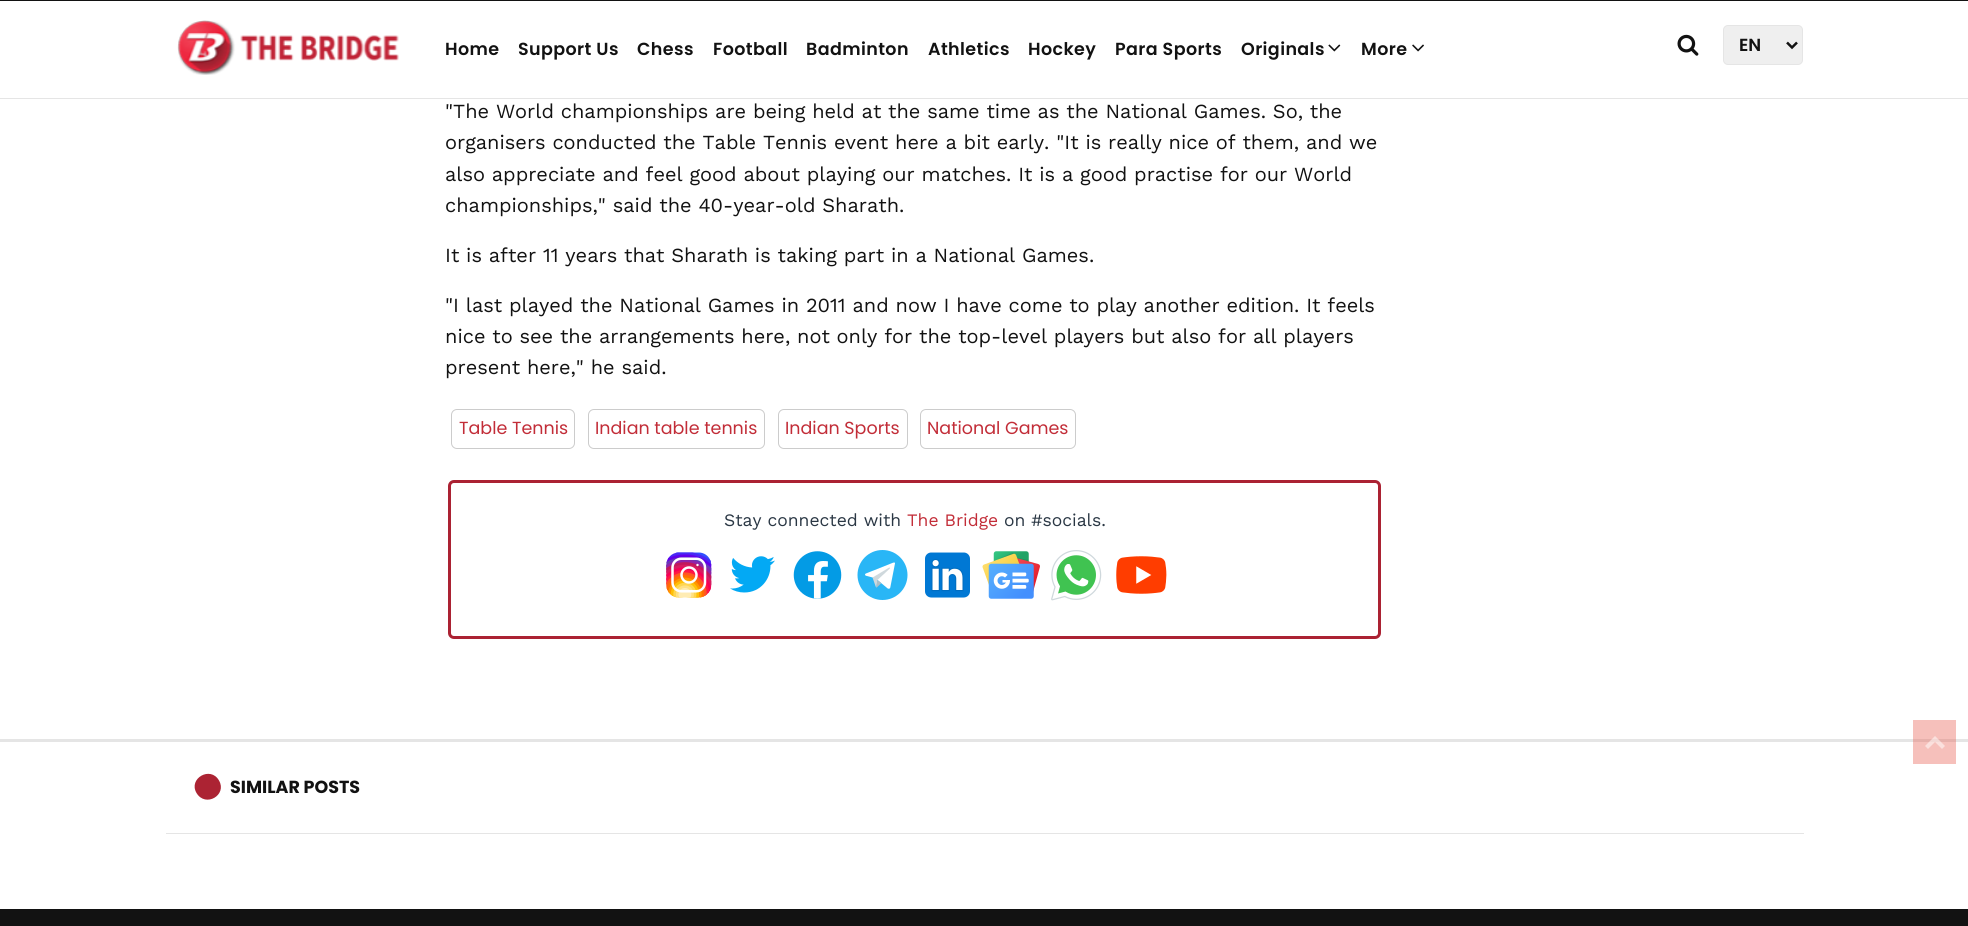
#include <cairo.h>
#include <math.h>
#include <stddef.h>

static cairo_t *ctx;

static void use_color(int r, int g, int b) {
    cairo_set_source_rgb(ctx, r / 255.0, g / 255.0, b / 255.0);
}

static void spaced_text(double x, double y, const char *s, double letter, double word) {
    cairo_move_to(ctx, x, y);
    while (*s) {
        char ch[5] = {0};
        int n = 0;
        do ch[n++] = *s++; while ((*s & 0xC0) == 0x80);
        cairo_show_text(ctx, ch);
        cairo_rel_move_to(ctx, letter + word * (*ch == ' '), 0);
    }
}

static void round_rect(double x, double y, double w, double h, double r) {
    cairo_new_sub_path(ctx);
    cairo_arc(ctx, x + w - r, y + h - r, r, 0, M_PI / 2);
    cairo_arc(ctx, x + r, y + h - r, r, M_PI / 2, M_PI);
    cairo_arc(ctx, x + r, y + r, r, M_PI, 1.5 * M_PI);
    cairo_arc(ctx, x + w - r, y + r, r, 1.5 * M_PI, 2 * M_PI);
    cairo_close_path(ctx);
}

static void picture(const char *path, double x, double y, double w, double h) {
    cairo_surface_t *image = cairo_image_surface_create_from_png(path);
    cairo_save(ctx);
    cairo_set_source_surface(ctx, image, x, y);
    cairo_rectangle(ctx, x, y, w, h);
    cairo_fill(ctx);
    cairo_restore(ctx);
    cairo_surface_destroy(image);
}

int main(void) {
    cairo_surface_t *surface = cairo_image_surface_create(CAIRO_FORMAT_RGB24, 1968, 926);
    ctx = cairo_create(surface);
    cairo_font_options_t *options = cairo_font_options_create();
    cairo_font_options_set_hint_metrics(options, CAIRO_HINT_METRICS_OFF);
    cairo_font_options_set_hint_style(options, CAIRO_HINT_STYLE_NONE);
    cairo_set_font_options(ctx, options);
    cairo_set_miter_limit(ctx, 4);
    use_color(255, 255, 255);
    cairo_paint(ctx);
    use_color(18, 18, 18);
    cairo_rectangle(ctx, 0, 0, 1968, 1);
    cairo_fill(ctx);
    use_color(229, 229, 229);
    cairo_rectangle(ctx, 0, 98, 1968, 1);
    cairo_fill(ctx);
    picture("img1.png", 177, 20, 222, 55);
    cairo_select_font_face(ctx, "Poppins SemiBold", CAIRO_FONT_SLANT_NORMAL, CAIRO_FONT_WEIGHT_NORMAL);
    cairo_set_font_size(ctx, 17.5);
    use_color(18, 18, 18);
    spaced_text(445, 55, "Home", 0.4, 0);
    spaced_text(518, 55, "Support Us", 0.4, 0);
    spaced_text(637, 55, "Chess", 0.4, 0);
    spaced_text(713, 55, "Football", 0.4, 0);
    spaced_text(806, 55, "Badminton", 0.4, 0);
    spaced_text(928, 55, "Athletics", 0.4, 0);
    spaced_text(1028, 55, "Hockey", 0.4, 0);
    spaced_text(1115, 55, "Para Sports", 0.4, 0);
    spaced_text(1241, 55, "Originals", 0.4, 0);
    picture("img2.png", 1328, 44, 13, 8);
    spaced_text(1361, 55, "More", 0.4, 0);
    picture("img3.png", 1412, 44, 12, 8);
    picture("img4.png", 1677, 34, 22, 22);
    use_color(239, 239, 239);
    round_rect(1723.5, 25.5, 79, 39, 4.5);
    cairo_fill_preserve(ctx);
    use_color(229, 229, 229);
    cairo_set_line_width(ctx, 1);
    cairo_stroke(ctx);
    cairo_new_path(ctx);
    cairo_move_to(ctx, 1787, 42.5);
    cairo_line_to(ctx, 1792, 47.5);
    cairo_line_to(ctx, 1797, 42.5);
    use_color(18, 18, 18);
    cairo_set_line_width(ctx, 2.5);
    cairo_stroke(ctx);
    cairo_move_to(ctx, 1739, 51);
    cairo_show_text(ctx, "EN");
    use_color(229, 229, 229);
    cairo_rectangle(ctx, 0, 739, 1968, 3);
    cairo_fill(ctx);
    cairo_select_font_face(ctx, "Work Sans", CAIRO_FONT_SLANT_NORMAL, CAIRO_FONT_WEIGHT_NORMAL);
    cairo_set_font_size(ctx, 20);
    use_color(18, 18, 18);
    cairo_move_to(ctx, 445, 118);
    cairo_show_text(ctx, "\"The World championships are being held at the same time as the National Games. So, the");
    cairo_move_to(ctx, 445, 149);
    cairo_show_text(ctx, "organisers conducted the Table Tennis event here a bit early. \"It is really nice of them, and we");
    cairo_move_to(ctx, 445, 181);
    cairo_show_text(ctx, "also appreciate and feel good about playing our matches. It is a good practise for our World");
    cairo_move_to(ctx, 445, 212);
    cairo_show_text(ctx, "championships,\" said the 40-year-old Sharath.");
    cairo_move_to(ctx, 445, 262);
    cairo_show_text(ctx, "It is after 11 years that Sharath is taking part in a National Games.");
    cairo_move_to(ctx, 445, 312);
    cairo_show_text(ctx, "\"I last played the National Games in 2011 and now I have come to play another edition. It feels");
    cairo_move_to(ctx, 445, 343);
    cairo_show_text(ctx, "nice to see the arrangements here, not only for the top-level players but also for all players");
    cairo_move_to(ctx, 445, 374);
    cairo_show_text(ctx, "present here,\" he said.");
    round_rect(451.5, 409.5, 123, 39, 5.5);
    use_color(204, 204, 204);
    cairo_set_line_width(ctx, 1);
    cairo_stroke(ctx);
    cairo_select_font_face(ctx, "Poppins", CAIRO_FONT_SLANT_NORMAL, CAIRO_FONT_WEIGHT_NORMAL);
    cairo_set_font_size(ctx, 17.5);
    use_color(194, 45, 56);
    cairo_move_to(ctx, 459, 434);
    cairo_show_text(ctx, "Table Tennis");
    round_rect(588.5, 409.5, 176, 39, 5.5);
    use_color(204, 204, 204);
    cairo_stroke(ctx);
    use_color(194, 45, 56);
    cairo_move_to(ctx, 595, 434);
    cairo_show_text(ctx, "Indian table tennis");
    round_rect(778.5, 409.5, 129, 39, 5.5);
    use_color(204, 204, 204);
    cairo_stroke(ctx);
    use_color(194, 45, 56);
    cairo_move_to(ctx, 785, 434);
    cairo_show_text(ctx, "Indian Sports");
    round_rect(920.5, 409.5, 155, 39, 5.5);
    use_color(204, 204, 204);
    cairo_stroke(ctx);
    use_color(194, 45, 56);
    cairo_move_to(ctx, 927, 434);
    cairo_show_text(ctx, "National Games");
    round_rect(449.5, 481.5, 930, 156, 4.5);
    use_color(171, 34, 51);
    cairo_set_line_width(ctx, 3);
    cairo_stroke(ctx);
    cairo_select_font_face(ctx, "Work Sans", CAIRO_FONT_SLANT_NORMAL, CAIRO_FONT_WEIGHT_NORMAL);
    use_color(42, 55, 68);
    cairo_move_to(ctx, 724, 526);
    cairo_show_text(ctx, "Stay connected with");
    use_color(194, 45, 56);
    cairo_move_to(ctx, 907, 526);
    cairo_show_text(ctx, "The Bridge");
    use_color(42, 55, 68);
    cairo_move_to(ctx, 1004, 526);
    cairo_show_text(ctx, "on #socials.");
    picture("img5.png", 666, 552, 46, 46);
    picture("img6.png", 730, 556, 45, 37);
    picture("img7.png", 793, 551, 49, 48);
    picture("img8.png", 857, 550, 51, 50);
    picture("img9.png", 925, 552, 45, 46);
    picture("img10.png", 982, 551, 58, 48);
    picture("img11.png", 1051, 550, 51, 51);
    picture("img12.png", 1116, 556, 51, 38);
    use_color(229, 229, 229);
    cairo_rectangle(ctx, 166, 833, 1638, 1);
    cairo_fill(ctx);
    use_color(172, 35, 51);
    cairo_new_path(ctx);
    cairo_move_to(ctx, 219, 780.5);
    cairo_curve_to(ctx, 227.5, 795, 205.5, 808, 196.5, 793);
    cairo_curve_to(ctx, 188, 778.5, 210.5, 765.5, 219, 780.5);
    cairo_close_path(ctx);
    cairo_fill(ctx);
    cairo_select_font_face(ctx, "Poppins", CAIRO_FONT_SLANT_NORMAL, CAIRO_FONT_WEIGHT_BOLD);
    use_color(18, 18, 18);
    cairo_move_to(ctx, 230, 793);
    cairo_show_text(ctx, "SIMILAR POSTS");
    cairo_rectangle(ctx, 0, 909, 1968, 17);
    cairo_fill(ctx);
    cairo_set_source_rgba(ctx, 0.91, 0.384, 0.337, 0.4);
    cairo_rectangle(ctx, 1913, 720, 43, 44);
    cairo_fill(ctx);
    cairo_set_source_rgba(ctx, 1, 1, 1, 0.5);
    cairo_new_path(ctx);
    cairo_move_to(ctx, 1935, 736);
    cairo_line_to(ctx, 1945, 746);
    cairo_line_to(ctx, 1942, 749);
    cairo_line_to(ctx, 1935, 742);
    cairo_line_to(ctx, 1928, 749);
    cairo_line_to(ctx, 1925, 746);
    cairo_close_path(ctx);
    cairo_fill(ctx);
    cairo_surface_write_to_png(surface, "result.png");
    cairo_font_options_destroy(options);
    cairo_destroy(ctx);
    cairo_surface_destroy(surface);
    return 0;
}
